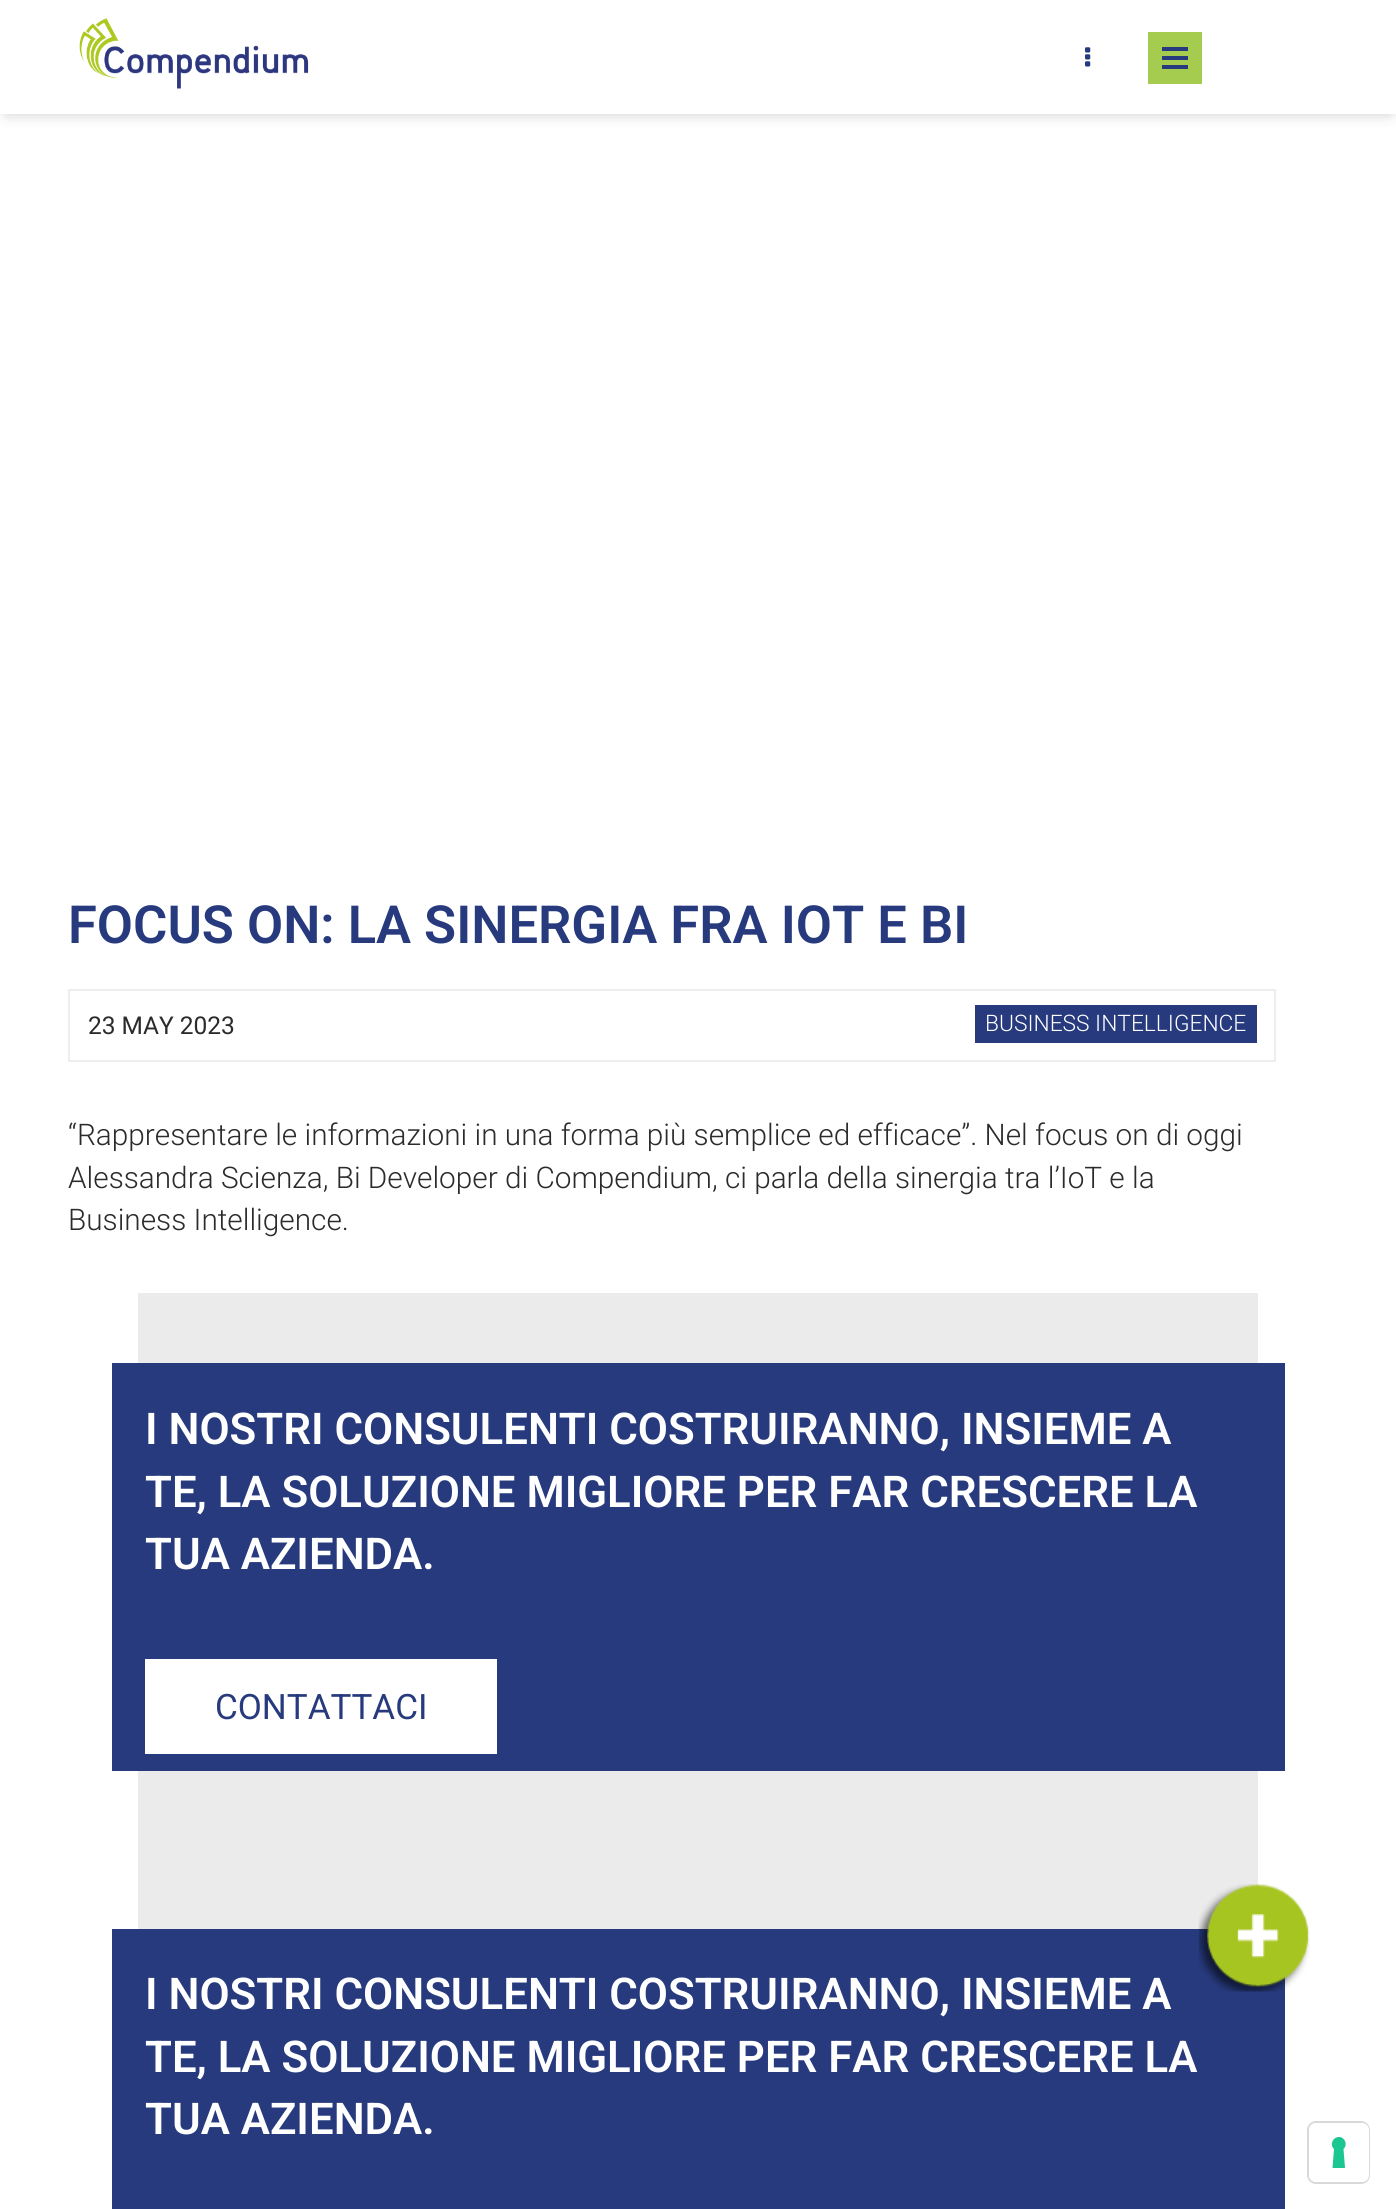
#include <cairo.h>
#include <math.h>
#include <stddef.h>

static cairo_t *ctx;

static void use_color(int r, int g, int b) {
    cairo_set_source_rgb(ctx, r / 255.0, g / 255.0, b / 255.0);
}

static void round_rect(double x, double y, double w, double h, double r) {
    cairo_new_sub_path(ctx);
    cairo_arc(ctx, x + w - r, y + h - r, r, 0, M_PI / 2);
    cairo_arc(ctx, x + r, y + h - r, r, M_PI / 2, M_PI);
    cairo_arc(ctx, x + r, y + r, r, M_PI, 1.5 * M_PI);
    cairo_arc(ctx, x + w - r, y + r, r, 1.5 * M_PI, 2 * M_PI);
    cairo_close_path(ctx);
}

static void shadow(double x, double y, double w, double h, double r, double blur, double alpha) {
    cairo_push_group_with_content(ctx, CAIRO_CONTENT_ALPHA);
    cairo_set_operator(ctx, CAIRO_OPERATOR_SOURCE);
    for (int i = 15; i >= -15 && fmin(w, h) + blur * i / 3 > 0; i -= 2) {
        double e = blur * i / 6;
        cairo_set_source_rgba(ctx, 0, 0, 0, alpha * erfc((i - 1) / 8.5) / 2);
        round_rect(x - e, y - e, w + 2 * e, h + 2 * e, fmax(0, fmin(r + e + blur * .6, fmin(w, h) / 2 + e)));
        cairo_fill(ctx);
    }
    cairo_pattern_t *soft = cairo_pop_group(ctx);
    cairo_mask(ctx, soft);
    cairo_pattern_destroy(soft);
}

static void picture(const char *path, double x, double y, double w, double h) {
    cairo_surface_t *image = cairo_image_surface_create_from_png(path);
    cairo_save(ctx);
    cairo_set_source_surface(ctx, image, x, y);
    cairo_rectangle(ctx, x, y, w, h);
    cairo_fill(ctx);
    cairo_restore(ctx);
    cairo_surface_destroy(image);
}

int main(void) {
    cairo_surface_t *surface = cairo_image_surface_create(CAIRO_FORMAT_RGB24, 1396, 2209);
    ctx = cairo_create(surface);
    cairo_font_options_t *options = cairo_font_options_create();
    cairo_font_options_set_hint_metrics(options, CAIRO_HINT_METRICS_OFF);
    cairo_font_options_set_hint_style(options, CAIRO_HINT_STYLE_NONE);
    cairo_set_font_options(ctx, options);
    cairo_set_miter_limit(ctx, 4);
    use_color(255, 255, 255);
    cairo_paint(ctx);
    use_color(0, 0, 0);
    shadow(7, 12, 1383, 100, 0, 8, 0.25);
    use_color(255, 255, 255);
    cairo_rectangle(ctx, 0, 0, 1396, 114);
    cairo_fill(ctx);
    picture("img1.png", 79, 18, 230, 71);
    picture("img2.png", 1085, 47, 6, 20);
    use_color(165, 204, 79);
    cairo_rectangle(ctx, 1148, 32, 54, 52);
    cairo_fill(ctx);
    use_color(39, 58, 125);
    cairo_rectangle(ctx, 1162, 47, 26, 4);
    cairo_fill(ctx);
    cairo_rectangle(ctx, 1162, 56, 26, 4);
    cairo_fill(ctx);
    cairo_rectangle(ctx, 1162, 65, 26, 4);
    cairo_fill(ctx);
    use_color(235, 235, 235);
    cairo_rectangle(ctx, 138, 1293, 1120, 636);
    cairo_fill(ctx);
    use_color(39, 58, 125);
    cairo_rectangle(ctx, 112, 1929, 1173, 280);
    cairo_fill(ctx);
    picture("img3.png", 1198, 1884, 112, 108);
    cairo_select_font_face(ctx, "Roboto SemiBold", CAIRO_FONT_SLANT_NORMAL, CAIRO_FONT_WEIGHT_NORMAL);
    cairo_set_font_size(ctx, 52.5);
    cairo_move_to(ctx, 68, 943);
    cairo_show_text(ctx, "FOCUS ON: LA SINERGIA FRA IOT E BI");
    cairo_rectangle(ctx, 69, 990, 1206, 71);
    use_color(238, 238, 238);
    cairo_stroke(ctx);
    cairo_select_font_face(ctx, "Roboto", CAIRO_FONT_SLANT_NORMAL, CAIRO_FONT_WEIGHT_NORMAL);
    cairo_set_font_size(ctx, 24.5);
    use_color(43, 43, 43);
    cairo_move_to(ctx, 88, 1034);
    cairo_show_text(ctx, "23 MAY 2023");
    use_color(39, 58, 125);
    cairo_rectangle(ctx, 975, 1005, 282, 38);
    cairo_fill(ctx);
    cairo_select_font_face(ctx, "Roboto Light", CAIRO_FONT_SLANT_NORMAL, CAIRO_FONT_WEIGHT_NORMAL);
    cairo_set_font_size(ctx, 22.75);
    use_color(255, 255, 255);
    cairo_move_to(ctx, 985, 1031);
    cairo_show_text(ctx, "BUSINESS INTELLIGENCE");
    cairo_set_font_size(ctx, 29.75);
    use_color(43, 43, 43);
    cairo_move_to(ctx, 68, 1145);
    cairo_show_text(ctx, "“Rappresentare le informazioni in una forma più semplice ed efficace”. Nel focus on di oggi");
    cairo_move_to(ctx, 68, 1188);
    cairo_show_text(ctx, "Alessandra Scienza, Bi Developer di Compendium, ci parla della sinergia tra l’IoT e la");
    cairo_move_to(ctx, 68, 1230);
    cairo_show_text(ctx, "Business Intelligence.");
    use_color(39, 58, 125);
    cairo_rectangle(ctx, 112, 1363, 1173, 408);
    cairo_fill(ctx);
    cairo_select_font_face(ctx, "Roboto SemiBold", CAIRO_FONT_SLANT_NORMAL, CAIRO_FONT_WEIGHT_NORMAL);
    cairo_set_font_size(ctx, 43.75);
    use_color(255, 255, 255);
    cairo_move_to(ctx, 145, 1444);
    cairo_show_text(ctx, "I NOSTRI CONSULENTI COSTRUIRANNO, INSIEME A");
    cairo_move_to(ctx, 145, 1507);
    cairo_show_text(ctx, "TE, LA SOLUZIONE MIGLIORE PER FAR CRESCERE LA");
    cairo_move_to(ctx, 145, 1569);
    cairo_show_text(ctx, "TUA AZIENDA.");
    cairo_rectangle(ctx, 145, 1659, 352, 95);
    cairo_fill(ctx);
    cairo_select_font_face(ctx, "Roboto", CAIRO_FONT_SLANT_NORMAL, CAIRO_FONT_WEIGHT_NORMAL);
    cairo_set_font_size(ctx, 35);
    use_color(39, 58, 125);
    cairo_move_to(ctx, 215, 1719);
    cairo_show_text(ctx, "CONTATTACI");
    cairo_select_font_face(ctx, "Roboto SemiBold", CAIRO_FONT_SLANT_NORMAL, CAIRO_FONT_WEIGHT_NORMAL);
    cairo_set_font_size(ctx, 43.75);
    use_color(255, 255, 255);
    cairo_move_to(ctx, 145, 2009);
    cairo_show_text(ctx, "I NOSTRI CONSULENTI COSTRUIRANNO, INSIEME A");
    cairo_move_to(ctx, 145, 2072);
    cairo_show_text(ctx, "TE, LA SOLUZIONE MIGLIORE PER FAR CRESCERE LA");
    cairo_move_to(ctx, 145, 2134);
    cairo_show_text(ctx, "TUA AZIENDA.");
    round_rect(1308, 2122, 61, 61, 8);
    use_color(217, 217, 217);
    cairo_stroke(ctx);
    use_color(255, 255, 255);
    round_rect(1309, 2123, 60, 59, 7);
    cairo_fill(ctx);
    use_color(28, 198, 145);
    cairo_set_fill_rule(ctx, CAIRO_FILL_RULE_EVEN_ODD);
    cairo_new_path(ctx);
    cairo_move_to(ctx, 1339, 2137);
    cairo_curve_to(ctx, 1345, 2137, 1348, 2145, 1343.5, 2149);
    cairo_line_to(ctx, 1345, 2168);
    cairo_line_to(ctx, 1332.5, 2168);
    cairo_line_to(ctx, 1334, 2149);
    cairo_curve_to(ctx, 1329.5, 2145, 1332.5, 2137, 1339, 2137);
    cairo_close_path(ctx);
    cairo_fill(ctx);
    cairo_surface_write_to_png(surface, "result.png");
    cairo_font_options_destroy(options);
    cairo_destroy(ctx);
    cairo_surface_destroy(surface);
    return 0;
}
